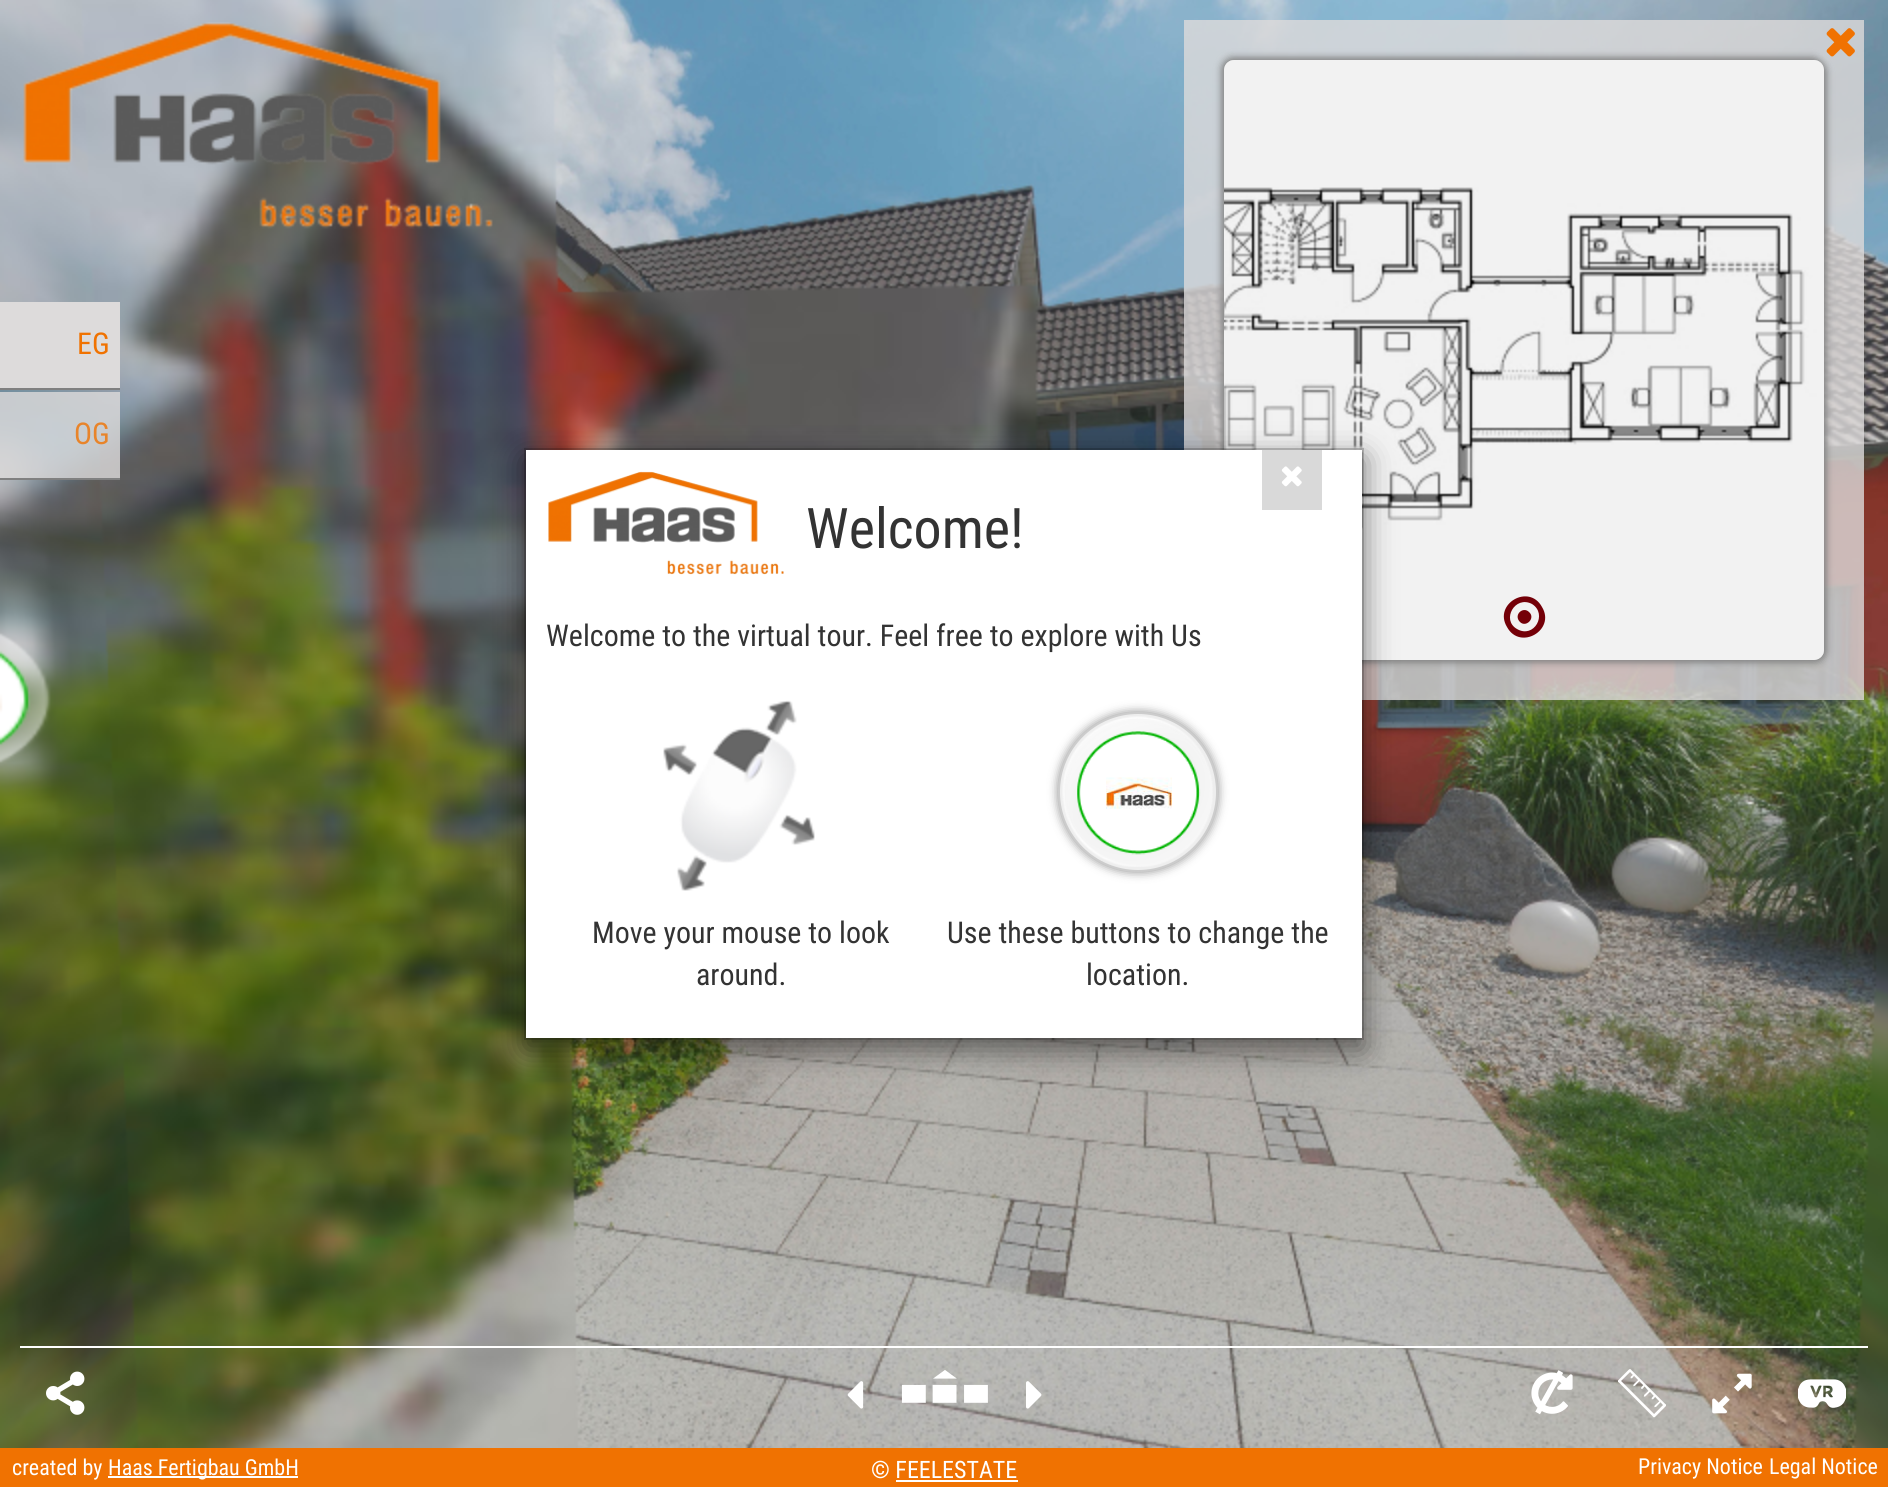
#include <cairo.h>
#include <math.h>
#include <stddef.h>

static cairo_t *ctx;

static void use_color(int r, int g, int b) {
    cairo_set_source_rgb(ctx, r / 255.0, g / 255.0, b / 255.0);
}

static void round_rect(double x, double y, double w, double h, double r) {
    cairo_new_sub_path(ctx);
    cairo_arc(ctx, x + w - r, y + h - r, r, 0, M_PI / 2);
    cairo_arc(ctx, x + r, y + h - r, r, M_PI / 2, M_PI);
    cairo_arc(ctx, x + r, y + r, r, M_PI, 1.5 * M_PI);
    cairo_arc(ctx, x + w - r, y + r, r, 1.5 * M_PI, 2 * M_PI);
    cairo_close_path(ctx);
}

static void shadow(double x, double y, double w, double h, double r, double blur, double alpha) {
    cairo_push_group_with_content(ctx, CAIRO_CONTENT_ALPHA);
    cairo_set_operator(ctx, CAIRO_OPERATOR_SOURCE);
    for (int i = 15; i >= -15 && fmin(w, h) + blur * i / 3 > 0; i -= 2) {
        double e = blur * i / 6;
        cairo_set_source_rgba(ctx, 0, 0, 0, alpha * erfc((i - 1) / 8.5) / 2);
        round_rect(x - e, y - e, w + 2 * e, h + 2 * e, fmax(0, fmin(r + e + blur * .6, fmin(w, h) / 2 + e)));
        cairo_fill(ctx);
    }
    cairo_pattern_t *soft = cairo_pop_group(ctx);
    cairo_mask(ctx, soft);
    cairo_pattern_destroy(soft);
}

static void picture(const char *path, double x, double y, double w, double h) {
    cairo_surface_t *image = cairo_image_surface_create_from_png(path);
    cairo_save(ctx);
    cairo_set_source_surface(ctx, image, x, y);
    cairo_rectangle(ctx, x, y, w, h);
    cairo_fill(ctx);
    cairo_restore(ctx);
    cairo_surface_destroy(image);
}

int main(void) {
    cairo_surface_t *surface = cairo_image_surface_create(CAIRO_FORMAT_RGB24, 1888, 1487);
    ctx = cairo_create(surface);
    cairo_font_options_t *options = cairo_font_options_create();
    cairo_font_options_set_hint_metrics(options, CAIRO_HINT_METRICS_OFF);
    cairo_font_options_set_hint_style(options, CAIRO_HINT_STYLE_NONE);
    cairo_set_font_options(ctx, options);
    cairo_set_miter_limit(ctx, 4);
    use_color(255, 255, 255);
    cairo_paint(ctx);
    picture("img1.png", 0, 0, 1888, 1448);
    picture("img2.png", 23, 22, 470, 207);
    cairo_set_source_rgba(ctx, 0.867, 0.859, 0.859, 0.8);
    cairo_rectangle(ctx, 1184, 20, 680, 680);
    cairo_fill(ctx);
    use_color(128, 128, 128);
    shadow(1226, 62, 600, 600, 10, 4, 1);
    shadow(1222, 58, 600, 600, 10, 4, 1);
    use_color(221, 221, 221);
    round_rect(1224, 60, 600, 600, 10);
    cairo_fill(ctx);
    picture("img3.png", 1224, 60, 336, 512);
    picture("img4.png", 1560, 60, 264, 512);
    picture("img5.png", 1362, 572, 198, 88);
    picture("img6.png", 1560, 572, 264, 88);
    use_color(116, 0, 8);
    cairo_new_path(ctx);
    cairo_move_to(ctx, 1529, 612);
    cairo_curve_to(ctx, 1536, 618, 1526, 628, 1520, 622);
    cairo_curve_to(ctx, 1513, 615, 1523, 606, 1529, 612);
    cairo_close_path(ctx);
    cairo_move_to(ctx, 1532, 604);
    cairo_curve_to(ctx, 1515, 595, 1501, 620, 1517, 629);
    cairo_curve_to(ctx, 1534, 639, 1548, 614, 1532, 604);
    cairo_close_path(ctx);
    cairo_move_to(ctx, 1542, 607);
    cairo_curve_to(ctx, 1556, 630, 1520, 651, 1507, 627);
    cairo_curve_to(ctx, 1493, 604, 1529, 583, 1542, 607);
    cairo_close_path(ctx);
    cairo_fill(ctx);
    picture("img7.png", 1826, 28, 29, 29);
    use_color(128, 128, 128);
    cairo_rectangle(ctx, 0, 388, 120, 2);
    cairo_fill(ctx);
    use_color(221, 219, 219);
    cairo_rectangle(ctx, 0, 302, 120, 86);
    cairo_fill(ctx);
    cairo_select_font_face(ctx, "Roboto Condensed", CAIRO_FONT_SLANT_NORMAL, CAIRO_FONT_WEIGHT_NORMAL);
    cairo_set_font_size(ctx, 30);
    use_color(240, 114, 1);
    cairo_move_to(ctx, 77, 354);
    cairo_show_text(ctx, "EG");
    use_color(128, 128, 128);
    cairo_rectangle(ctx, 0, 478, 120, 2);
    cairo_fill(ctx);
    cairo_set_source_rgba(ctx, 0.867, 0.859, 0.859, 0.8);
    cairo_rectangle(ctx, 0, 392, 120, 86);
    cairo_fill(ctx);
    use_color(232, 132, 42);
    cairo_move_to(ctx, 74, 444);
    cairo_show_text(ctx, "OG");
    use_color(255, 255, 255);
    cairo_rectangle(ctx, 20, 1346, 1848, 2);
    cairo_fill(ctx);
    picture("img8.png", 46, 1371, 39, 44);
    picture("img9.png", 847, 1381, 17, 28);
    picture("img10.png", 901, 1370, 87, 33);
    picture("img11.png", 1026, 1381, 16, 28);
    picture("img12.png", 1531, 1370, 42, 45);
    picture("img13.png", 1618, 1369, 48, 49);
    picture("img14.png", 1712, 1373, 40, 41);
    picture("img15.png", 1798, 1379, 48, 29);
    use_color(240, 114, 1);
    cairo_rectangle(ctx, 0, 1448, 1888, 39);
    cairo_fill(ctx);
    cairo_set_font_size(ctx, 22);
    use_color(255, 255, 255);
    cairo_move_to(ctx, 12, 1475);
    cairo_show_text(ctx, "created by");
    cairo_rectangle(ctx, 108, 1476, 190, 2);
    cairo_fill(ctx);
    cairo_move_to(ctx, 108, 1475);
    cairo_show_text(ctx, "Haas Fertigbau GmbH");
    cairo_set_font_size(ctx, 24);
    cairo_move_to(ctx, 871, 1478);
    cairo_show_text(ctx, "© FEELESTATE");
    cairo_rectangle(ctx, 896, 1480, 122, 2);
    cairo_fill(ctx);
    cairo_set_font_size(ctx, 22);
    cairo_move_to(ctx, 1638, 1474);
    cairo_show_text(ctx, "Privacy Notice");
    cairo_move_to(ctx, 1769, 1474);
    cairo_show_text(ctx, "Legal Notice");
    use_color(0, 0, 0);
    shadow(524, 458, 840, 592, 0, 15, 0.5);
    use_color(255, 255, 255);
    cairo_rectangle(ctx, 526, 450, 836, 588);
    cairo_fill(ctx);
    cairo_rectangle(ctx, 525, 449, 838, 590);
    cairo_set_source_rgba(ctx, 0, 0, 0, 0.2);
    cairo_stroke(ctx);
    use_color(217, 217, 217);
    cairo_rectangle(ctx, 1262, 450, 60, 60);
    cairo_fill(ctx);
    picture("img16.png", 1281, 466, 21, 21);
    picture("img17.png", 548, 471, 236, 104);
    cairo_set_font_size(ctx, 56);
    use_color(51, 51, 51);
    cairo_move_to(ctx, 806, 548);
    cairo_show_text(ctx, "Welcome!");
    cairo_set_font_size(ctx, 30);
    cairo_move_to(ctx, 546, 646);
    cairo_show_text(ctx, "Welcome to the virtual tour. Feel free to explore with Us");
    picture("img18.png", 663, 700, 152, 191);
    cairo_move_to(ctx, 592, 943);
    cairo_show_text(ctx, "Move your mouse to look");
    cairo_move_to(ctx, 696, 985);
    cairo_show_text(ctx, "around.");
    use_color(0, 0, 0);
    shadow(1058, 712, 160, 160, 80, 5, 0.45);
    use_color(238, 238, 238);
    cairo_arc(ctx, 1138, 792, 79, 0, 2 * M_PI);
    cairo_fill_preserve(ctx);
    use_color(204, 204, 204);
    cairo_stroke(ctx);
    picture("img19.png", 1062, 716, 151, 151);
    picture("img20.png", 1106, 777, 66, 32);
    use_color(51, 51, 51);
    cairo_move_to(ctx, 947, 943);
    cairo_show_text(ctx, "Use these buttons to change the");
    cairo_move_to(ctx, 1086, 985);
    cairo_show_text(ctx, "location.");
    cairo_surface_write_to_png(surface, "result.png");
    cairo_font_options_destroy(options);
    cairo_destroy(ctx);
    cairo_surface_destroy(surface);
    return 0;
}
